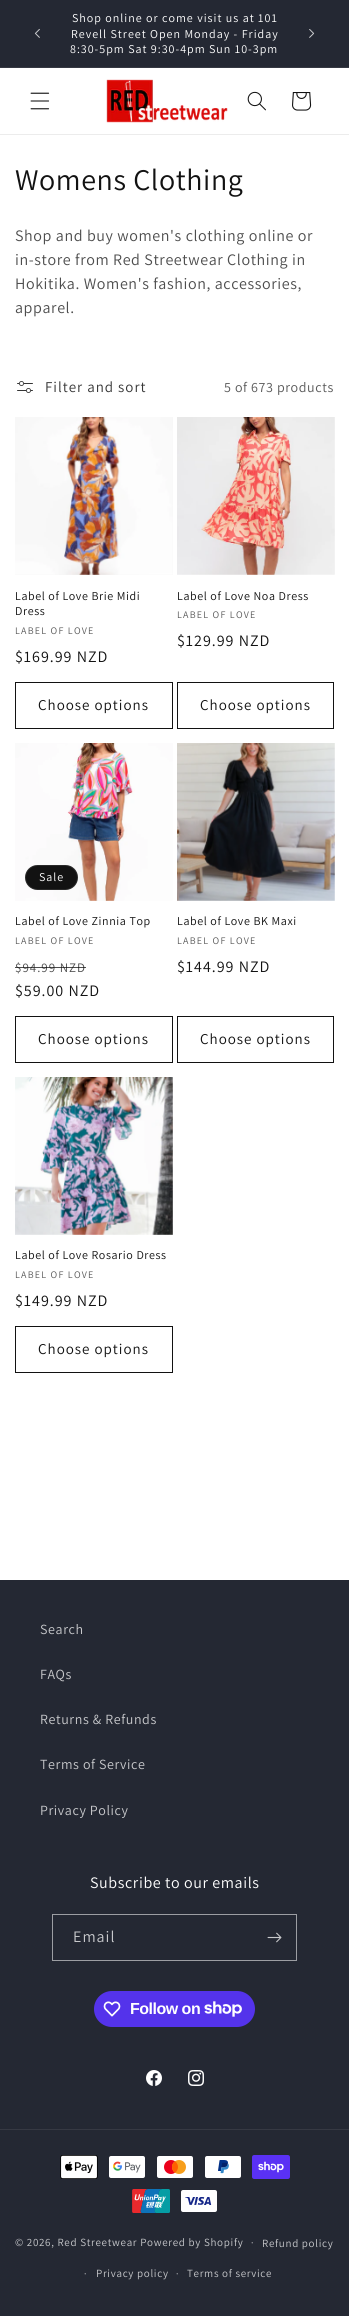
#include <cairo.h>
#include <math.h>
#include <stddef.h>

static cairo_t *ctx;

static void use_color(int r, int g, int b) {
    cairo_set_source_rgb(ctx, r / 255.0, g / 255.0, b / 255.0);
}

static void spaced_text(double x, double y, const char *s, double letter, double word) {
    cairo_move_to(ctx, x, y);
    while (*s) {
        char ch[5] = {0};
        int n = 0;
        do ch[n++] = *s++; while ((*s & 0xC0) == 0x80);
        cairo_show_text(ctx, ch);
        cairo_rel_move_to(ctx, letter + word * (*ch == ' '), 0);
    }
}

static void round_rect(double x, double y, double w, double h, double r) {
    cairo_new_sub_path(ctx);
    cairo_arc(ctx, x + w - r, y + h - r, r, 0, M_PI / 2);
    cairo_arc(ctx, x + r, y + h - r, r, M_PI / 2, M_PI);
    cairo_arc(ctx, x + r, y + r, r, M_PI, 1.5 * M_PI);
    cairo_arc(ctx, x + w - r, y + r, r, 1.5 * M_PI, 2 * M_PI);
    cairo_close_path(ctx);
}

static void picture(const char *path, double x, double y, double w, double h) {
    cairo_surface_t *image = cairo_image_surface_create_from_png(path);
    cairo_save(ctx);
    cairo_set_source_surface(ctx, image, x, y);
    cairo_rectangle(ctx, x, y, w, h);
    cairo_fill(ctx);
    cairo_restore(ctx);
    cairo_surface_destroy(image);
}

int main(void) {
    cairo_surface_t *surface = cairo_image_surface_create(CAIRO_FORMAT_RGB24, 349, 2316);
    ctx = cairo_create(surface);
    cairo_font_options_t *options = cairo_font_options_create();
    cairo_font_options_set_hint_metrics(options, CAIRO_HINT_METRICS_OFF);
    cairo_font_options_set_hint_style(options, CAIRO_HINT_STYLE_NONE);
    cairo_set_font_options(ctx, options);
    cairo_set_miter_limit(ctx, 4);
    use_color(255, 255, 255);
    cairo_paint(ctx);
    use_color(36, 40, 51);
    cairo_rectangle(ctx, 0, 0, 349, 67);
    cairo_fill(ctx);
    use_color(54, 57, 67);
    cairo_rectangle(ctx, 0, 67, 349, 1);
    cairo_fill(ctx);
    picture("img1.png", 34, 28, 6, 10);
    cairo_select_font_face(ctx, "Assistant", CAIRO_FONT_SLANT_NORMAL, CAIRO_FONT_WEIGHT_NORMAL);
    cairo_set_font_size(ctx, 12);
    use_color(255, 255, 255);
    spaced_text(72, 22, "Shop online or come visit us at 101", 1, 0);
    spaced_text(71, 38, "Revell Street Open Monday - Friday", 1, 0);
    spaced_text(70, 53, "8:30-5pm Sat 9:30-4pm Sun 10-3pm", 1, 0);
    picture("img2.png", 309, 29, 6, 9);
    use_color(236, 236, 236);
    cairo_rectangle(ctx, 0, 134, 349, 1);
    cairo_fill(ctx);
    picture("img3.png", 30, 92, 20, 18);
    picture("img4.png", 106, 79, 122, 44);
    picture("img5.png", 247, 91, 19, 20);
    picture("img6.png", 292, 92, 20, 19);
    cairo_set_font_size(ctx, 30);
    use_color(18, 18, 18);
    spaced_text(15, 190, "Womens Clothing", 0.6, 0);
    cairo_set_font_size(ctx, 16);
    use_color(77, 77, 77);
    spaced_text(15, 241, "Shop and buy women's clothing online or", 0.6, 0);
    spaced_text(15, 265, "in-store from Red Streetwear Clothing in", 0.6, 0);
    spaced_text(15, 289, "Hokitika. Women's fashion, accessories,", 0.6, 0);
    spaced_text(15, 313, "apparel.", 0.6, 0);
    picture("img7.png", 17, 381, 16, 12);
    cairo_set_font_size(ctx, 15);
    use_color(54, 54, 54);
    spaced_text(45, 392, "Filter and sort", 1, 0);
    cairo_set_font_size(ctx, 14);
    use_color(89, 89, 89);
    spaced_text(224, 392, "5 of 673 products", 0.6, 0);
    use_color(243, 243, 243);
    cairo_rectangle(ctx, 15, 417, 158, 158);
    cairo_fill(ctx);
    picture("img8.png", 15, 417, 158, 158);
    cairo_set_font_size(ctx, 12);
    use_color(18, 18, 18);
    spaced_text(15, 600, "Label of Love Brie Midi", 0.6, 0);
    spaced_text(15, 615, "Dress", 0.6, 0);
    cairo_set_font_size(ctx, 10);
    use_color(89, 89, 89);
    spaced_text(15, 634, "LABEL OF LOVE", 1.25, 0);
    cairo_set_font_size(ctx, 16);
    use_color(18, 18, 18);
    spaced_text(15, 662, "$169.99 NZD", 1, 0);
    cairo_rectangle(ctx, 15.5, 682.5, 157, 46);
    cairo_set_line_width(ctx, 1);
    cairo_stroke(ctx);
    cairo_set_font_size(ctx, 15);
    spaced_text(38, 710, "Choose options", 1, 0);
    picture("img9.png", 177, 417, 158, 158);
    cairo_set_font_size(ctx, 12);
    spaced_text(177, 600, "Label of Love Noa Dress", 0.6, 0);
    cairo_set_font_size(ctx, 10);
    use_color(89, 89, 89);
    spaced_text(177, 618, "LABEL OF LOVE", 1.25, 0);
    cairo_set_font_size(ctx, 16);
    use_color(18, 18, 18);
    spaced_text(177, 646, "$129.99 NZD", 1, 0);
    cairo_rectangle(ctx, 177.5, 682.5, 156, 46);
    cairo_stroke(ctx);
    cairo_set_font_size(ctx, 15);
    spaced_text(200, 710, "Choose options", 1, 0);
    picture("img10.png", 15, 743, 158, 158);
    round_rect(25, 865, 53, 25, 12.5);
    cairo_fill(ctx);
    round_rect(25.5, 865.5, 52, 24, 12);
    cairo_set_source_rgba(ctx, 1, 1, 1, 0.1);
    cairo_stroke(ctx);
    cairo_set_font_size(ctx, 12);
    use_color(255, 255, 255);
    spaced_text(39, 881, "Sale", 1, 0);
    use_color(18, 18, 18);
    spaced_text(15, 925, "Label of Love Zinnia Top", 0.6, 0);
    cairo_set_font_size(ctx, 10);
    use_color(89, 89, 89);
    spaced_text(15, 944, "LABEL OF LOVE", 1.25, 0);
    cairo_set_font_size(ctx, 13);
    use_color(77, 77, 77);
    spaced_text(15, 972, "$94.99 NZD", 1, 0);
    cairo_set_source_rgba(ctx, 0.071, 0.071, 0.071, 0.75);
    cairo_rectangle(ctx, 15, 967, 71, 1);
    cairo_fill(ctx);
    cairo_set_font_size(ctx, 16);
    use_color(18, 18, 18);
    spaced_text(15, 996, "$59.00 NZD", 1, 0);
    cairo_rectangle(ctx, 15.5, 1016.5, 157, 46);
    cairo_stroke(ctx);
    cairo_set_font_size(ctx, 15);
    spaced_text(38, 1044, "Choose options", 1, 0);
    picture("img11.png", 177, 743, 158, 158);
    cairo_set_font_size(ctx, 12);
    spaced_text(177, 925, "Label of Love BK Maxi", 0.6, 0);
    cairo_set_font_size(ctx, 10);
    use_color(89, 89, 89);
    spaced_text(177, 944, "LABEL OF LOVE", 1.25, 0);
    cairo_set_font_size(ctx, 16);
    use_color(18, 18, 18);
    spaced_text(177, 972, "$144.99 NZD", 1, 0);
    cairo_rectangle(ctx, 177.5, 1016.5, 156, 46);
    cairo_stroke(ctx);
    cairo_set_font_size(ctx, 15);
    spaced_text(200, 1044, "Choose options", 1, 0);
    picture("img12.png", 15, 1077, 158, 158);
    cairo_set_font_size(ctx, 12);
    spaced_text(15, 1259, "Label of Love Rosario Dress", 0.6, 0);
    cairo_set_font_size(ctx, 10);
    use_color(89, 89, 89);
    spaced_text(15, 1278, "LABEL OF LOVE", 1.25, 0);
    cairo_set_font_size(ctx, 16);
    use_color(18, 18, 18);
    spaced_text(15, 1306, "$149.99 NZD", 1, 0);
    cairo_rectangle(ctx, 15.5, 1326.5, 157, 46);
    cairo_stroke(ctx);
    cairo_set_font_size(ctx, 15);
    spaced_text(38, 1354, "Choose options", 1, 0);
    use_color(36, 40, 51);
    cairo_rectangle(ctx, 0, 1580, 349, 736);
    cairo_fill(ctx);
    cairo_set_font_size(ctx, 14);
    use_color(200, 201, 204);
    spaced_text(40, 1634, "Search", 0.6, 0);
    spaced_text(40, 1679, "FAQs", 0.6, 0);
    spaced_text(40, 1724, "Returns & Refunds", 0.6, 0);
    spaced_text(40, 1769, "Terms of Service", 0.6, 0);
    spaced_text(40, 1815, "Privacy Policy", 0.6, 0);
    cairo_set_font_size(ctx, 16);
    use_color(255, 255, 255);
    spaced_text(90, 1888, "Subscribe to our emails", 0.6, 0);
    cairo_rectangle(ctx, 52.5, 1914.5, 244, 46);
    use_color(156, 158, 163);
    cairo_stroke(ctx);
    use_color(200, 201, 204);
    spaced_text(73, 1942, "Email", 1, 0);
    picture("img13.png", 267, 1932, 15, 11);
    use_color(84, 51, 235);
    round_rect(94, 1991, 161, 36, 18);
    cairo_fill(ctx);
    picture("img14.png", 103, 2001, 18, 16);
    cairo_select_font_face(ctx, "Liberation Sans", CAIRO_FONT_SLANT_NORMAL, CAIRO_FONT_WEIGHT_BOLD);
    use_color(255, 255, 255);
    spaced_text(130, 2014, "Follow on", -0.5, 0);
    picture("img15.png", 204, 2001, 38, 16);
    picture("img16.png", 146, 2070, 16, 16);
    picture("img17.png", 188, 2070, 16, 16);
    use_color(54, 57, 67);
    cairo_rectangle(ctx, 0, 2129, 349, 1);
    cairo_fill(ctx);
    picture("img18.png", 60, 2155, 38, 24);
    picture("img19.png", 109, 2156, 36, 22);
    picture("img20.png", 157, 2156, 36, 22);
    picture("img21.png", 205, 2156, 36, 22);
    picture("img22.png", 252, 2155, 38, 24);
    picture("img23.png", 132, 2189, 38, 24);
    picture("img24.png", 181, 2190, 36, 22);
    cairo_select_font_face(ctx, "Assistant", CAIRO_FONT_SLANT_NORMAL, CAIRO_FONT_WEIGHT_NORMAL);
    cairo_set_font_size(ctx, 11);
    use_color(200, 201, 204);
    spaced_text(15, 2246, "© 2026, Red Streetwear Powered by Shopify", 0.7, 0);
    cairo_set_font_size(ctx, 10);
    spaced_text(251, 2246, "·", 0.7, 0);
    cairo_set_font_size(ctx, 11);
    spaced_text(262, 2247, "Refund policy", 0.7, 0);
    cairo_set_font_size(ctx, 10);
    spaced_text(84, 2277, "·", 0.7, 0);
    cairo_set_font_size(ctx, 11);
    spaced_text(96, 2277, "Privacy policy", 0.7, 0);
    cairo_set_font_size(ctx, 10);
    spaced_text(176, 2277, "·", 0.7, 0);
    cairo_set_font_size(ctx, 11);
    spaced_text(187, 2277, "Terms of service", 0.7, 0);
    cairo_surface_write_to_png(surface, "result.png");
    cairo_font_options_destroy(options);
    cairo_destroy(ctx);
    cairo_surface_destroy(surface);
    return 0;
}
